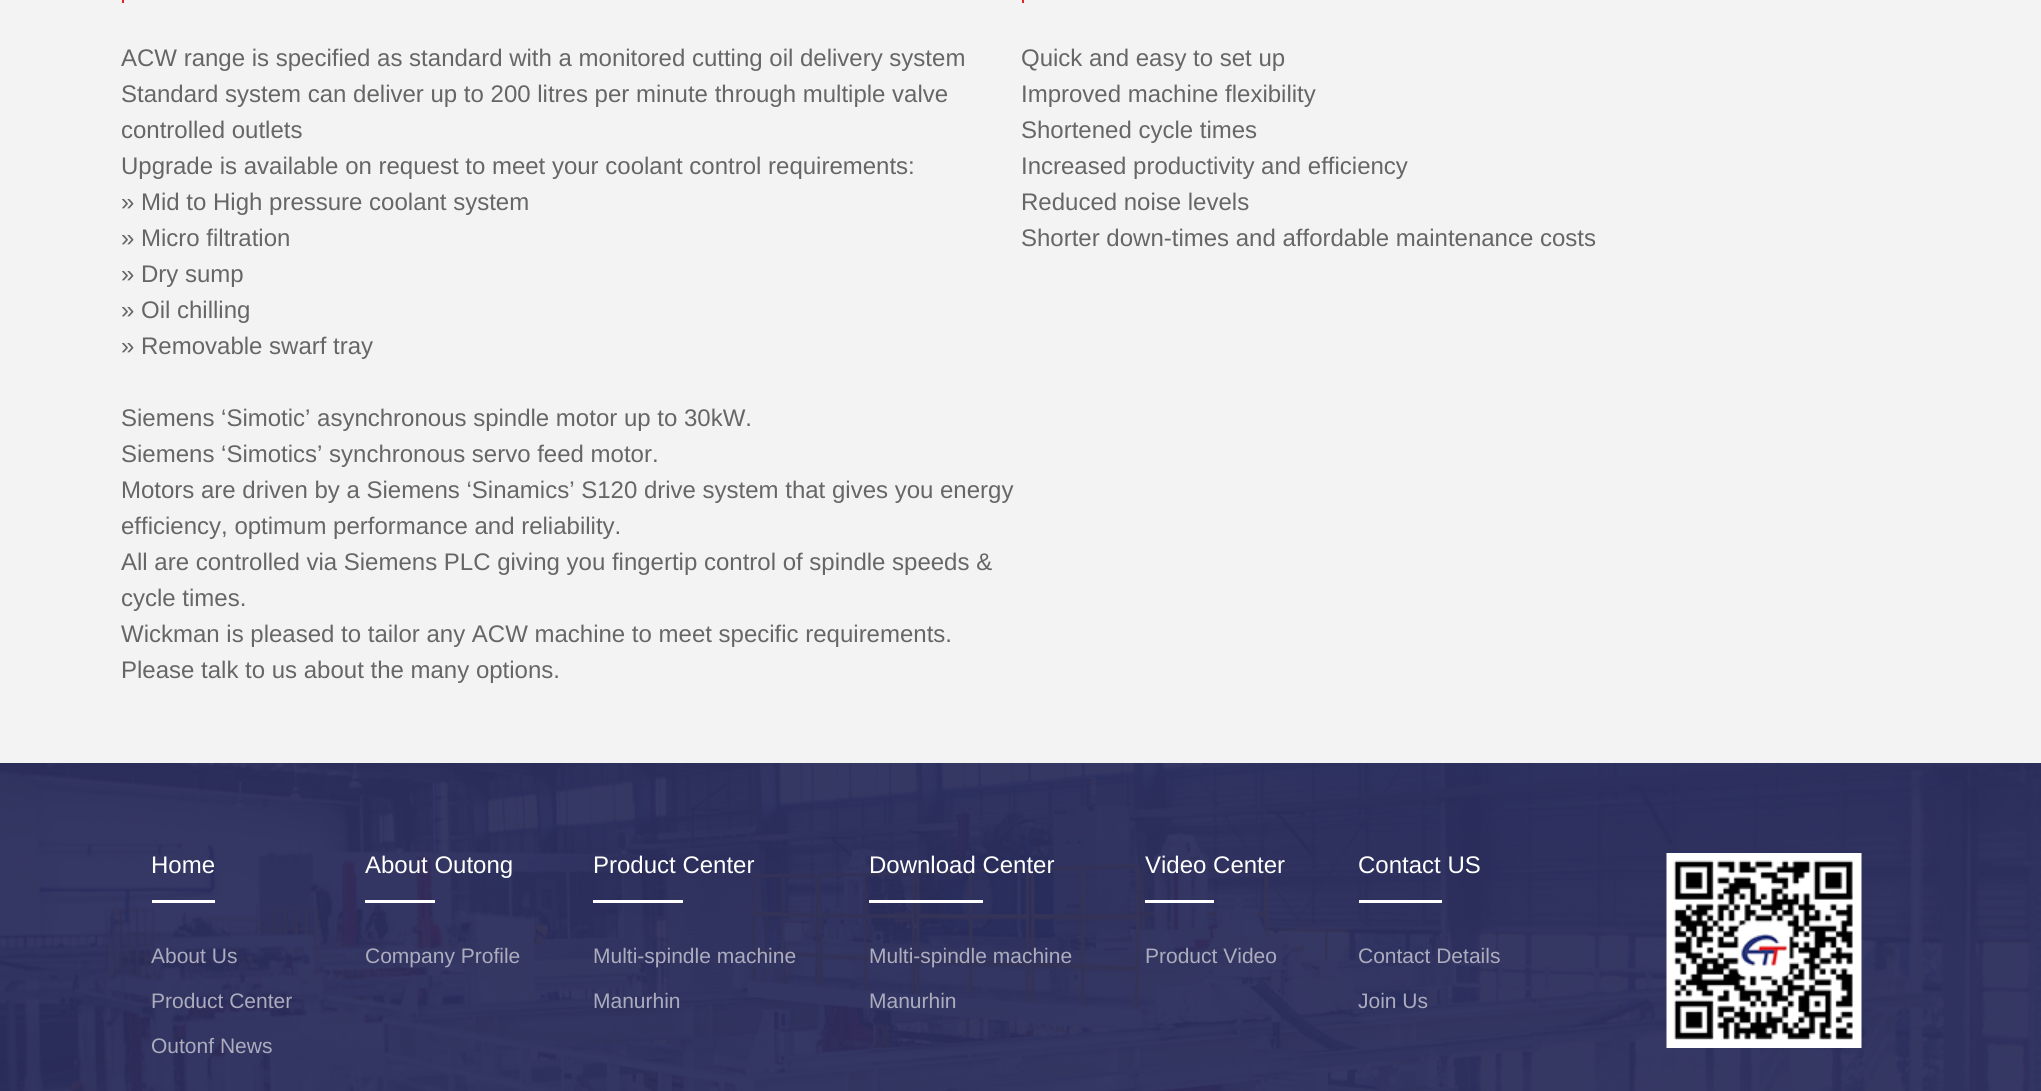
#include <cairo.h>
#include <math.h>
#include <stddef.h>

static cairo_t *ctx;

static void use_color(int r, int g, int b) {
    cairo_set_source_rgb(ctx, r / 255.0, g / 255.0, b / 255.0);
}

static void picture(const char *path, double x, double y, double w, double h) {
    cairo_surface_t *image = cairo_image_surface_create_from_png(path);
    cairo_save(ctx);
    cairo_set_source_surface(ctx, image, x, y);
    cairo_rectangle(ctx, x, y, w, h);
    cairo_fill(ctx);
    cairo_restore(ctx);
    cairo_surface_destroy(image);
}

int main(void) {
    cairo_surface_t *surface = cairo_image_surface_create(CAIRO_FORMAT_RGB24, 2041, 1091);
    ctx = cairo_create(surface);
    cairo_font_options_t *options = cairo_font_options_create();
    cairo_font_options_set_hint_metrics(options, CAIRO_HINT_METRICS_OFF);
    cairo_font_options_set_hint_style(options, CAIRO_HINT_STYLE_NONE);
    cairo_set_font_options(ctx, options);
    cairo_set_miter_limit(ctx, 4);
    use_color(243, 243, 243);
    cairo_paint(ctx);
    use_color(223, 37, 42);
    cairo_rectangle(ctx, 122, 0, 2, 3);
    cairo_fill(ctx);
    cairo_select_font_face(ctx, "Liberation Sans", CAIRO_FONT_SLANT_NORMAL, CAIRO_FONT_WEIGHT_NORMAL);
    cairo_set_font_size(ctx, 24);
    use_color(102, 102, 102);
    cairo_move_to(ctx, 121, 66);
    cairo_show_text(ctx, "ACW range is specified as standard with a monitored cutting oil delivery system");
    cairo_move_to(ctx, 121, 102);
    cairo_show_text(ctx, "Standard system can deliver up to 200 litres per minute through multiple valve");
    cairo_move_to(ctx, 121, 138);
    cairo_show_text(ctx, "controlled outlets");
    cairo_move_to(ctx, 121, 174);
    cairo_show_text(ctx, "Upgrade is available on request to meet your coolant control requirements:");
    cairo_move_to(ctx, 121, 210);
    cairo_show_text(ctx, "» Mid to High pressure coolant system");
    cairo_move_to(ctx, 121, 246);
    cairo_show_text(ctx, "» Micro filtration");
    cairo_move_to(ctx, 121, 282);
    cairo_show_text(ctx, "» Dry sump");
    cairo_move_to(ctx, 121, 318);
    cairo_show_text(ctx, "» Oil chilling");
    cairo_move_to(ctx, 121, 354);
    cairo_show_text(ctx, "» Removable swarf tray");
    cairo_move_to(ctx, 121, 426);
    cairo_show_text(ctx, "Siemens ‘Simotic’ asynchronous spindle motor up to 30kW.");
    cairo_move_to(ctx, 121, 462);
    cairo_show_text(ctx, "Siemens ‘Simotics’ synchronous servo feed motor.");
    cairo_move_to(ctx, 121, 498);
    cairo_show_text(ctx, "Motors are driven by a Siemens ‘Sinamics’ S120 drive system that gives you energy");
    cairo_move_to(ctx, 121, 534);
    cairo_show_text(ctx, "efficiency, optimum performance and reliability.");
    cairo_move_to(ctx, 121, 570);
    cairo_show_text(ctx, "All are controlled via Siemens PLC giving you fingertip control of spindle speeds &");
    cairo_move_to(ctx, 121, 606);
    cairo_show_text(ctx, "cycle times.");
    cairo_move_to(ctx, 121, 642);
    cairo_show_text(ctx, "Wickman is pleased to tailor any ACW machine to meet specific requirements.");
    cairo_move_to(ctx, 121, 678);
    cairo_show_text(ctx, "Please talk to us about the many options.");
    use_color(223, 37, 42);
    cairo_rectangle(ctx, 1022, 0, 2, 3);
    cairo_fill(ctx);
    use_color(102, 102, 102);
    cairo_move_to(ctx, 1021, 66);
    cairo_show_text(ctx, "Quick and easy to set up");
    cairo_move_to(ctx, 1021, 102);
    cairo_show_text(ctx, "Improved machine flexibility");
    cairo_move_to(ctx, 1021, 138);
    cairo_show_text(ctx, "Shortened cycle times");
    cairo_move_to(ctx, 1021, 174);
    cairo_show_text(ctx, "Increased productivity and efficiency");
    cairo_move_to(ctx, 1021, 210);
    cairo_show_text(ctx, "Reduced noise levels");
    cairo_move_to(ctx, 1021, 246);
    cairo_show_text(ctx, "Shorter down-times and affordable maintenance costs");
    picture("img1.png", 0, 763, 2041, 328);
    use_color(255, 255, 255);
    cairo_move_to(ctx, 151, 873);
    cairo_show_text(ctx, "Home");
    cairo_rectangle(ctx, 152, 900, 63, 3);
    cairo_fill(ctx);
    cairo_set_font_size(ctx, 21);
    use_color(172, 172, 190);
    cairo_move_to(ctx, 151, 963);
    cairo_show_text(ctx, "About Us");
    cairo_move_to(ctx, 151, 1008);
    cairo_show_text(ctx, "Product Center");
    cairo_move_to(ctx, 151, 1053);
    cairo_show_text(ctx, "Outonf News");
    cairo_set_font_size(ctx, 24);
    use_color(255, 255, 255);
    cairo_move_to(ctx, 365, 873);
    cairo_show_text(ctx, "About Outong");
    cairo_rectangle(ctx, 365, 900, 70, 3);
    cairo_fill(ctx);
    cairo_set_font_size(ctx, 21);
    use_color(172, 172, 190);
    cairo_move_to(ctx, 365, 963);
    cairo_show_text(ctx, "Company Profile");
    cairo_set_font_size(ctx, 24);
    use_color(255, 255, 255);
    cairo_move_to(ctx, 593, 873);
    cairo_show_text(ctx, "Product Center");
    cairo_rectangle(ctx, 593, 900, 90, 3);
    cairo_fill(ctx);
    cairo_set_font_size(ctx, 21);
    use_color(172, 172, 190);
    cairo_move_to(ctx, 593, 963);
    cairo_show_text(ctx, "Multi-spindle machine");
    cairo_move_to(ctx, 593, 1008);
    cairo_show_text(ctx, "Manurhin");
    cairo_set_font_size(ctx, 24);
    use_color(255, 255, 255);
    cairo_move_to(ctx, 869, 873);
    cairo_show_text(ctx, "Download Center");
    cairo_rectangle(ctx, 869, 900, 114, 3);
    cairo_fill(ctx);
    cairo_set_font_size(ctx, 21);
    use_color(172, 172, 190);
    cairo_move_to(ctx, 869, 963);
    cairo_show_text(ctx, "Multi-spindle machine");
    cairo_move_to(ctx, 869, 1008);
    cairo_show_text(ctx, "Manurhin");
    cairo_set_font_size(ctx, 24);
    use_color(255, 255, 255);
    cairo_move_to(ctx, 1145, 873);
    cairo_show_text(ctx, "Video Center");
    cairo_rectangle(ctx, 1145, 900, 69, 3);
    cairo_fill(ctx);
    cairo_set_font_size(ctx, 21);
    use_color(172, 172, 190);
    cairo_move_to(ctx, 1145, 963);
    cairo_show_text(ctx, "Product Video");
    cairo_set_font_size(ctx, 24);
    use_color(255, 255, 255);
    cairo_move_to(ctx, 1358, 873);
    cairo_show_text(ctx, "Contact US");
    cairo_rectangle(ctx, 1359, 900, 83, 3);
    cairo_fill(ctx);
    cairo_set_font_size(ctx, 21);
    use_color(172, 172, 190);
    cairo_move_to(ctx, 1358, 963);
    cairo_show_text(ctx, "Contact Details");
    cairo_move_to(ctx, 1358, 1008);
    cairo_show_text(ctx, "Join Us");
    picture("img2.png", 1666, 853, 196, 195);
    cairo_surface_write_to_png(surface, "result.png");
    cairo_font_options_destroy(options);
    cairo_destroy(ctx);
    cairo_surface_destroy(surface);
    return 0;
}
